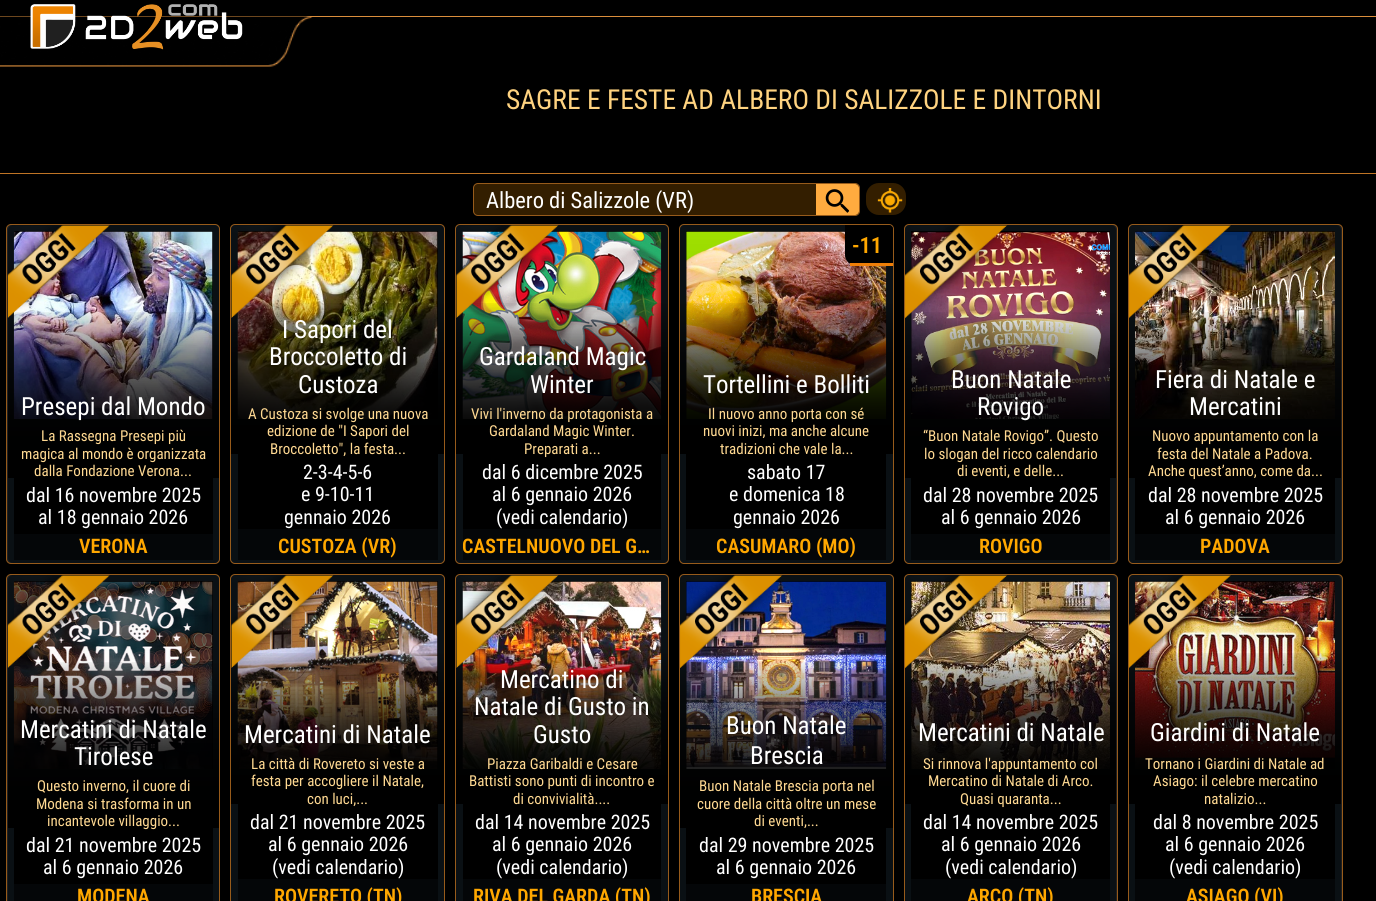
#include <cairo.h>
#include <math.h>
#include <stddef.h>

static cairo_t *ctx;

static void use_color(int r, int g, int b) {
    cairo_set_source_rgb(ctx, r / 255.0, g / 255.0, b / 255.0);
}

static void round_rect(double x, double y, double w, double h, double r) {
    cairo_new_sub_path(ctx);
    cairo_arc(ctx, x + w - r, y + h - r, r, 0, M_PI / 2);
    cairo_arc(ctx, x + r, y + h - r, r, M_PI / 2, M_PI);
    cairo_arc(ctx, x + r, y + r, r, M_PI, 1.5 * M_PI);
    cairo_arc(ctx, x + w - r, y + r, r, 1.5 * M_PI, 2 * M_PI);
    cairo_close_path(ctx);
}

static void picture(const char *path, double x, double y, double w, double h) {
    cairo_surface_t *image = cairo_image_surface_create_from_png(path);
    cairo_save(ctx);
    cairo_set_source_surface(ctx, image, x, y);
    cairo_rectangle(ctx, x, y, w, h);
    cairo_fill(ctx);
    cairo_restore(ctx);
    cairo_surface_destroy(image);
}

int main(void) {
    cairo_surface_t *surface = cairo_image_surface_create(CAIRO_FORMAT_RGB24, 1376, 901);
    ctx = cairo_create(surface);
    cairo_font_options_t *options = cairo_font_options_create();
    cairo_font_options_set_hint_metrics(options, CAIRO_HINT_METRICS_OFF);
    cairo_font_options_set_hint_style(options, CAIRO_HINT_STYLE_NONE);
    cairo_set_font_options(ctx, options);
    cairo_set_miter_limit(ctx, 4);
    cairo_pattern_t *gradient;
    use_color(0, 0, 0);
    cairo_paint(ctx);
    use_color(219, 142, 60);
    cairo_rectangle(ctx, 0, 16, 1376, 1);
    cairo_fill(ctx);
    picture("img2.png", 0, 16, 313, 51);
    picture("img1.png", 30, 4, 213, 46);
    cairo_select_font_face(ctx, "Roboto Condensed", CAIRO_FONT_SLANT_NORMAL, CAIRO_FONT_WEIGHT_NORMAL);
    cairo_set_font_size(ctx, 27.5);
    use_color(255, 211, 128);
    cairo_move_to(ctx, 506, 109);
    cairo_show_text(ctx, "SAGRE E FESTE AD ALBERO DI SALIZZOLE E DINTORNI");
    use_color(191, 116, 37);
    cairo_rectangle(ctx, 0, 173, 1376, 1);
    cairo_fill(ctx);
    use_color(51, 30, 0);
    round_rect(473.5, 183.5, 386, 32, 4.5);
    cairo_fill_preserve(ctx);
    use_color(151, 91, 27);
    cairo_set_line_width(ctx, 1);
    cairo_stroke(ctx);
    cairo_set_font_size(ctx, 22.5);
    use_color(255, 255, 255);
    cairo_move_to(ctx, 486, 208);
    cairo_show_text(ctx, "Albero di Salizzole (VR)");
    use_color(255, 171, 63);
    cairo_new_path(ctx);
    cairo_move_to(ctx, 816, 184);
    cairo_line_to(ctx, 855, 184);
    cairo_curve_to(ctx, 857, 184, 859, 186, 859, 188);
    cairo_line_to(ctx, 859, 211);
    cairo_curve_to(ctx, 859, 213, 857, 215, 855, 215);
    cairo_line_to(ctx, 816, 215);
    cairo_close_path(ctx);
    cairo_fill(ctx);
    picture("img3.png", 825, 189, 24, 24);
    use_color(51, 30, 0);
    round_rect(866, 183, 40, 32, 13);
    cairo_fill(ctx);
    picture("img4.png", 877, 188, 26, 25);
    use_color(32, 32, 32);
    round_rect(6.5, 224.5, 213, 339, 4.5);
    cairo_fill_preserve(ctx);
    use_color(151, 91, 27);
    cairo_stroke(ctx);
    cairo_save(ctx);
    round_rect(8, 225, 211, 338, 4);
    cairo_clip(ctx);
    use_color(10, 16, 20);
    round_rect(8, 225, 211, 338, 5);
    cairo_fill(ctx);
    cairo_restore(ctx);
    use_color(0, 0, 0);
    cairo_rectangle(ctx, 14, 231, 199, 188);
    cairo_fill(ctx);
    picture("img6.png", 13, 231, 200, 188);
    cairo_rectangle(ctx, 14, 476, 199, 58);
    cairo_fill(ctx);
    gradient = cairo_pattern_create_linear(113, 225, 113, 478);
    cairo_pattern_add_color_stop_rgba(gradient, 0.33, 0, 0, 0, 0);
    cairo_pattern_add_color_stop_rgba(gradient, 1, 0, 0, 0, 1);
    cairo_set_source(ctx, gradient);
    cairo_pattern_destroy(gradient);
    cairo_rectangle(ctx, 8, 312, 211, 165);
    cairo_fill(ctx);
    cairo_rectangle(ctx, 8, 312, 211, 166);
    cairo_fill(ctx);
    picture("img5.png", 7, 225, 103, 93);
    cairo_set_font_size(ctx, 25);
    use_color(255, 255, 255);
    cairo_move_to(ctx, 21, 415);
    cairo_show_text(ctx, "Presepi dal Mondo");
    cairo_set_font_size(ctx, 15);
    use_color(255, 217, 146);
    cairo_move_to(ctx, 41, 441);
    cairo_show_text(ctx, "La Rassegna Presepi più");
    cairo_move_to(ctx, 21, 459);
    cairo_show_text(ctx, "magica al mondo è organizzata");
    cairo_move_to(ctx, 34, 476);
    cairo_show_text(ctx, "dalla Fondazione Verona...");
    cairo_set_font_size(ctx, 20);
    use_color(255, 255, 255);
    cairo_move_to(ctx, 26, 502);
    cairo_show_text(ctx, "dal 16 novembre 2025");
    cairo_move_to(ctx, 38, 524);
    cairo_show_text(ctx, "al 18 gennaio 2026");
    use_color(4, 6, 8);
    cairo_rectangle(ctx, 14, 534, 199, 26);
    cairo_fill(ctx);
    cairo_select_font_face(ctx, "Roboto Condensed SemiBold", CAIRO_FONT_SLANT_NORMAL, CAIRO_FONT_WEIGHT_NORMAL);
    use_color(255, 167, 0);
    cairo_move_to(ctx, 79, 553);
    cairo_show_text(ctx, "VERONA");
    use_color(32, 32, 32);
    round_rect(230.5, 224.5, 214, 339, 4.5);
    cairo_fill_preserve(ctx);
    use_color(151, 91, 27);
    cairo_stroke(ctx);
    cairo_save(ctx);
    round_rect(231, 225, 213, 338, 4);
    cairo_clip(ctx);
    use_color(10, 16, 20);
    round_rect(231, 225, 213, 338, 5);
    cairo_fill(ctx);
    cairo_restore(ctx);
    use_color(0, 0, 0);
    cairo_rectangle(ctx, 238, 231, 200, 188);
    cairo_fill(ctx);
    picture("img8.png", 237, 231, 201, 188);
    gradient = cairo_pattern_create_linear(338, 225, 338, 450);
    cairo_pattern_add_color_stop_rgba(gradient, 0.33, 0, 0, 0, 0);
    cairo_pattern_add_color_stop_rgba(gradient, 1, 0, 0, 0, 1);
    cairo_set_source(ctx, gradient);
    cairo_pattern_destroy(gradient);
    cairo_rectangle(ctx, 231, 303, 213, 123);
    cairo_fill(ctx);
    cairo_rectangle(ctx, 231, 303, 213, 123);
    cairo_fill(ctx);
    picture("img7.png", 231, 225, 103, 93);
    cairo_select_font_face(ctx, "Roboto Condensed", CAIRO_FONT_SLANT_NORMAL, CAIRO_FONT_WEIGHT_NORMAL);
    cairo_set_font_size(ctx, 25);
    use_color(255, 255, 255);
    cairo_move_to(ctx, 282, 338);
    cairo_show_text(ctx, "I Sapori del");
    cairo_move_to(ctx, 269, 365);
    cairo_show_text(ctx, "Broccoletto di");
    cairo_move_to(ctx, 298, 393);
    cairo_show_text(ctx, "Custoza");
    cairo_set_font_size(ctx, 15);
    use_color(255, 217, 146);
    cairo_move_to(ctx, 248, 419);
    cairo_show_text(ctx, "A Custoza si svolge una nuova");
    use_color(0, 0, 0);
    cairo_rectangle(ctx, 231, 426, 213, 28);
    cairo_fill(ctx);
    use_color(255, 217, 146);
    cairo_move_to(ctx, 267, 436);
    cairo_show_text(ctx, "edizione de \"I Sapori del");
    use_color(0, 0, 0);
    cairo_rectangle(ctx, 238, 454, 200, 75);
    cairo_fill(ctx);
    use_color(255, 217, 146);
    cairo_move_to(ctx, 270, 454);
    cairo_show_text(ctx, "Broccoletto\", la festa...");
    cairo_set_font_size(ctx, 20);
    use_color(255, 255, 255);
    cairo_move_to(ctx, 303, 479);
    cairo_show_text(ctx, "2-3-4-5-6");
    cairo_move_to(ctx, 301, 501);
    cairo_show_text(ctx, "e 9-10-11");
    cairo_move_to(ctx, 284, 524);
    cairo_show_text(ctx, "gennaio 2026");
    use_color(4, 6, 8);
    cairo_rectangle(ctx, 238, 529, 200, 31);
    cairo_fill(ctx);
    cairo_select_font_face(ctx, "Roboto Condensed SemiBold", CAIRO_FONT_SLANT_NORMAL, CAIRO_FONT_WEIGHT_NORMAL);
    use_color(255, 167, 0);
    cairo_move_to(ctx, 278, 553);
    cairo_show_text(ctx, "CUSTOZA (VR)");
    use_color(32, 32, 32);
    round_rect(455.5, 224.5, 213, 339, 4.5);
    cairo_fill_preserve(ctx);
    use_color(151, 91, 27);
    cairo_stroke(ctx);
    cairo_save(ctx);
    round_rect(456, 225, 212, 338, 4);
    cairo_clip(ctx);
    use_color(10, 16, 20);
    round_rect(456, 225, 212, 338, 5);
    cairo_fill(ctx);
    cairo_restore(ctx);
    use_color(0, 0, 0);
    cairo_rectangle(ctx, 463, 231, 198, 1);
    cairo_fill(ctx);
    picture("img10.png", 462, 231, 200, 188);
    gradient = cairo_pattern_create_linear(562, 225, 562, 450);
    cairo_pattern_add_color_stop_rgba(gradient, 0.33, 0, 0, 0, 0);
    cairo_pattern_add_color_stop_rgba(gradient, 1, 0, 0, 0, 1);
    cairo_set_source(ctx, gradient);
    cairo_pattern_destroy(gradient);
    cairo_rectangle(ctx, 456, 303, 212, 123);
    cairo_fill(ctx);
    cairo_rectangle(ctx, 456, 303, 212, 123);
    cairo_fill(ctx);
    picture("img9.png", 456, 225, 103, 93);
    cairo_select_font_face(ctx, "Roboto Condensed", CAIRO_FONT_SLANT_NORMAL, CAIRO_FONT_WEIGHT_NORMAL);
    cairo_set_font_size(ctx, 25);
    use_color(255, 255, 255);
    cairo_move_to(ctx, 479, 365);
    cairo_show_text(ctx, "Gardaland Magic");
    cairo_move_to(ctx, 530, 393);
    cairo_show_text(ctx, "Winter");
    cairo_set_font_size(ctx, 15);
    use_color(255, 217, 146);
    cairo_move_to(ctx, 471, 419);
    cairo_show_text(ctx, "Vivi l'inverno da protagonista a");
    use_color(0, 0, 0);
    cairo_rectangle(ctx, 456, 426, 212, 28);
    cairo_fill(ctx);
    use_color(255, 217, 146);
    cairo_move_to(ctx, 489, 436);
    cairo_show_text(ctx, "Gardaland Magic Winter.");
    use_color(0, 0, 0);
    cairo_rectangle(ctx, 463, 454, 198, 75);
    cairo_fill(ctx);
    use_color(255, 217, 146);
    cairo_move_to(ctx, 524, 454);
    cairo_show_text(ctx, "Preparati a...");
    cairo_set_font_size(ctx, 20);
    use_color(255, 255, 255);
    cairo_move_to(ctx, 482, 479);
    cairo_show_text(ctx, "dal 6 dicembre 2025");
    cairo_move_to(ctx, 492, 501);
    cairo_show_text(ctx, "al 6 gennaio 2026");
    cairo_move_to(ctx, 496, 524);
    cairo_show_text(ctx, "(vedi calendario)");
    use_color(4, 6, 8);
    cairo_rectangle(ctx, 463, 529, 198, 31);
    cairo_fill(ctx);
    cairo_select_font_face(ctx, "Roboto Condensed SemiBold", CAIRO_FONT_SLANT_NORMAL, CAIRO_FONT_WEIGHT_NORMAL);
    use_color(255, 167, 0);
    cairo_move_to(ctx, 462, 553);
    cairo_show_text(ctx, "CASTELNUOVO DEL G…");
    use_color(32, 32, 32);
    round_rect(679.5, 224.5, 214, 339, 4.5);
    cairo_fill_preserve(ctx);
    use_color(151, 91, 27);
    cairo_stroke(ctx);
    cairo_save(ctx);
    round_rect(680, 225, 213, 338, 4);
    cairo_clip(ctx);
    use_color(10, 16, 20);
    round_rect(680, 225, 213, 338, 5);
    cairo_fill(ctx);
    cairo_restore(ctx);
    use_color(0, 0, 0);
    cairo_rectangle(ctx, 686, 231, 159, 188);
    cairo_fill(ctx);
    picture("img11.png", 686, 231, 201, 188);
    cairo_new_path(ctx);
    cairo_move_to(ctx, 845, 225);
    cairo_line_to(ctx, 889, 225);
    cairo_curve_to(ctx, 891, 225, 893, 227, 893, 229);
    cairo_line_to(ctx, 893, 265);
    cairo_line_to(ctx, 855, 265);
    cairo_curve_to(ctx, 849.5, 265, 845, 260.5, 845, 255);
    cairo_close_path(ctx);
    cairo_fill(ctx);
    use_color(239, 127, 8);
    cairo_rectangle(ctx, 850, 263, 43, 3);
    cairo_fill(ctx);
    cairo_set_font_size(ctx, 22.5);
    use_color(255, 167, 0);
    cairo_move_to(ctx, 852, 253);
    cairo_show_text(ctx, "-11");
    use_color(0, 0, 0);
    cairo_rectangle(ctx, 686, 454, 200, 75);
    cairo_fill(ctx);
    cairo_select_font_face(ctx, "Roboto Condensed", CAIRO_FONT_SLANT_NORMAL, CAIRO_FONT_WEIGHT_NORMAL);
    cairo_set_font_size(ctx, 20);
    use_color(255, 255, 255);
    cairo_move_to(ctx, 747, 479);
    cairo_show_text(ctx, "sabato 17");
    cairo_move_to(ctx, 729, 501);
    cairo_show_text(ctx, "e domenica 18");
    cairo_move_to(ctx, 733, 524);
    cairo_show_text(ctx, "gennaio 2026");
    use_color(4, 6, 8);
    cairo_rectangle(ctx, 686, 529, 200, 31);
    cairo_fill(ctx);
    cairo_select_font_face(ctx, "Roboto Condensed SemiBold", CAIRO_FONT_SLANT_NORMAL, CAIRO_FONT_WEIGHT_NORMAL);
    use_color(255, 167, 0);
    cairo_move_to(ctx, 716, 553);
    cairo_show_text(ctx, "CASUMARO (MO)");
    gradient = cairo_pattern_create_linear(786, 225, 786, 450);
    cairo_pattern_add_color_stop_rgba(gradient, 0.33, 0, 0, 0, 0);
    cairo_pattern_add_color_stop_rgba(gradient, 1, 0, 0, 0, 1);
    cairo_set_source(ctx, gradient);
    cairo_pattern_destroy(gradient);
    cairo_rectangle(ctx, 680, 303, 213, 123);
    cairo_fill(ctx);
    cairo_rectangle(ctx, 680, 303, 213, 123);
    cairo_fill(ctx);
    cairo_select_font_face(ctx, "Roboto Condensed", CAIRO_FONT_SLANT_NORMAL, CAIRO_FONT_WEIGHT_NORMAL);
    cairo_set_font_size(ctx, 25);
    use_color(255, 255, 255);
    cairo_move_to(ctx, 703, 393);
    cairo_show_text(ctx, "Tortellini e Bolliti");
    cairo_set_font_size(ctx, 15);
    use_color(255, 217, 146);
    cairo_move_to(ctx, 708, 419);
    cairo_show_text(ctx, "Il nuovo anno porta con sé");
    use_color(0, 0, 0);
    cairo_rectangle(ctx, 680, 426, 213, 28);
    cairo_fill(ctx);
    use_color(255, 217, 146);
    cairo_move_to(ctx, 703, 436);
    cairo_show_text(ctx, "nuovi inizi, ma anche alcune");
    cairo_move_to(ctx, 720, 454);
    cairo_show_text(ctx, "tradizioni che vale la...");
    use_color(32, 32, 32);
    round_rect(904.5, 224.5, 213, 339, 4.5);
    cairo_fill_preserve(ctx);
    use_color(151, 91, 27);
    cairo_stroke(ctx);
    cairo_save(ctx);
    round_rect(905, 225, 211, 338, 4);
    cairo_clip(ctx);
    use_color(10, 16, 20);
    round_rect(905, 225, 211, 338, 5);
    cairo_fill(ctx);
    cairo_restore(ctx);
    use_color(0, 0, 0);
    cairo_rectangle(ctx, 911, 231, 199, 188);
    cairo_fill(ctx);
    picture("img13.png", 911, 232, 199, 187);
    cairo_rectangle(ctx, 911, 476, 199, 58);
    cairo_fill(ctx);
    gradient = cairo_pattern_create_linear(1011, 225, 1011, 478);
    cairo_pattern_add_color_stop_rgba(gradient, 0.33, 0, 0, 0, 0);
    cairo_pattern_add_color_stop_rgba(gradient, 1, 0, 0, 0, 1);
    cairo_set_source(ctx, gradient);
    cairo_pattern_destroy(gradient);
    cairo_rectangle(ctx, 905, 312, 211, 165);
    cairo_fill(ctx);
    cairo_rectangle(ctx, 905, 312, 211, 166);
    cairo_fill(ctx);
    picture("img12.png", 905, 225, 103, 94);
    cairo_set_font_size(ctx, 25);
    use_color(255, 255, 255);
    cairo_move_to(ctx, 951, 388);
    cairo_show_text(ctx, "Buon Natale");
    cairo_move_to(ctx, 977, 415);
    cairo_show_text(ctx, "Rovigo");
    cairo_set_font_size(ctx, 15);
    use_color(255, 217, 146);
    cairo_move_to(ctx, 923, 441);
    cairo_show_text(ctx, "“Buon Natale Rovigo”. Questo");
    cairo_move_to(ctx, 924, 459);
    cairo_show_text(ctx, "lo slogan del ricco calendario");
    cairo_move_to(ctx, 957, 476);
    cairo_show_text(ctx, "di eventi, e delle...");
    cairo_set_font_size(ctx, 20);
    use_color(255, 255, 255);
    cairo_move_to(ctx, 923, 502);
    cairo_show_text(ctx, "dal 28 novembre 2025");
    cairo_move_to(ctx, 941, 524);
    cairo_show_text(ctx, "al 6 gennaio 2026");
    use_color(4, 6, 8);
    cairo_rectangle(ctx, 911, 534, 199, 26);
    cairo_fill(ctx);
    cairo_select_font_face(ctx, "Roboto Condensed SemiBold", CAIRO_FONT_SLANT_NORMAL, CAIRO_FONT_WEIGHT_NORMAL);
    use_color(255, 167, 0);
    cairo_move_to(ctx, 979, 553);
    cairo_show_text(ctx, "ROVIGO");
    use_color(32, 32, 32);
    round_rect(1128.5, 224.5, 214, 339, 4.5);
    cairo_fill_preserve(ctx);
    use_color(151, 91, 27);
    cairo_stroke(ctx);
    cairo_save(ctx);
    round_rect(1129, 225, 212, 338, 4);
    cairo_clip(ctx);
    use_color(10, 16, 20);
    round_rect(1129, 225, 212, 338, 5);
    cairo_fill(ctx);
    cairo_restore(ctx);
    use_color(0, 0, 0);
    cairo_rectangle(ctx, 1135, 231, 200, 1);
    cairo_fill(ctx);
    picture("img15.png", 1135, 231, 200, 188);
    cairo_rectangle(ctx, 1135, 476, 200, 58);
    cairo_fill(ctx);
    gradient = cairo_pattern_create_linear(1235, 225, 1235, 478);
    cairo_pattern_add_color_stop_rgba(gradient, 0.33, 0, 0, 0, 0);
    cairo_pattern_add_color_stop_rgba(gradient, 1, 0, 0, 0, 1);
    cairo_set_source(ctx, gradient);
    cairo_pattern_destroy(gradient);
    cairo_rectangle(ctx, 1129, 312, 212, 165);
    cairo_fill(ctx);
    cairo_rectangle(ctx, 1129, 312, 212, 166);
    cairo_fill(ctx);
    picture("img14.png", 1129, 225, 102, 94);
    cairo_select_font_face(ctx, "Roboto Condensed", CAIRO_FONT_SLANT_NORMAL, CAIRO_FONT_WEIGHT_NORMAL);
    cairo_set_font_size(ctx, 25);
    use_color(255, 255, 255);
    cairo_move_to(ctx, 1155, 388);
    cairo_show_text(ctx, "Fiera di Natale e");
    cairo_move_to(ctx, 1189, 415);
    cairo_show_text(ctx, "Mercatini");
    cairo_set_font_size(ctx, 15);
    use_color(255, 217, 146);
    cairo_move_to(ctx, 1152, 441);
    cairo_show_text(ctx, "Nuovo appuntamento con la");
    cairo_move_to(ctx, 1157, 459);
    cairo_show_text(ctx, "festa del Natale a Padova.");
    cairo_move_to(ctx, 1148, 476);
    cairo_show_text(ctx, "Anche quest’anno, come da...");
    cairo_set_font_size(ctx, 20);
    use_color(255, 255, 255);
    cairo_move_to(ctx, 1148, 502);
    cairo_show_text(ctx, "dal 28 novembre 2025");
    cairo_move_to(ctx, 1165, 524);
    cairo_show_text(ctx, "al 6 gennaio 2026");
    use_color(4, 6, 8);
    cairo_rectangle(ctx, 1135, 534, 200, 26);
    cairo_fill(ctx);
    cairo_select_font_face(ctx, "Roboto Condensed SemiBold", CAIRO_FONT_SLANT_NORMAL, CAIRO_FONT_WEIGHT_NORMAL);
    use_color(255, 167, 0);
    cairo_move_to(ctx, 1200, 553);
    cairo_show_text(ctx, "PADOVA");
    use_color(32, 32, 32);
    round_rect(6.5, 574.5, 213, 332, 4.5);
    cairo_fill_preserve(ctx);
    use_color(151, 91, 27);
    cairo_stroke(ctx);
    cairo_save(ctx);
    round_rect(8, 575, 211, 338, 4);
    cairo_clip(ctx);
    use_color(10, 16, 20);
    round_rect(8, 575, 211, 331, 5);
    cairo_fill(ctx);
    cairo_restore(ctx);
    use_color(0, 0, 0);
    cairo_rectangle(ctx, 14, 581, 199, 188);
    cairo_fill(ctx);
    picture("img17.png", 13, 581, 200, 188);
    cairo_rectangle(ctx, 14, 826, 199, 58);
    cairo_fill(ctx);
    gradient = cairo_pattern_create_linear(113, 575, 113, 828);
    cairo_pattern_add_color_stop_rgba(gradient, 0.33, 0, 0, 0, 0);
    cairo_pattern_add_color_stop_rgba(gradient, 1, 0, 0, 0, 1);
    cairo_set_source(ctx, gradient);
    cairo_pattern_destroy(gradient);
    cairo_rectangle(ctx, 8, 662, 211, 165);
    cairo_fill(ctx);
    cairo_rectangle(ctx, 8, 662, 211, 166);
    cairo_fill(ctx);
    picture("img16.png", 7, 575, 103, 93);
    cairo_select_font_face(ctx, "Roboto Condensed", CAIRO_FONT_SLANT_NORMAL, CAIRO_FONT_WEIGHT_NORMAL);
    cairo_set_font_size(ctx, 25);
    use_color(255, 255, 255);
    cairo_move_to(ctx, 20, 738);
    cairo_show_text(ctx, "Mercatini di Natale");
    cairo_move_to(ctx, 74, 765);
    cairo_show_text(ctx, "Tirolese");
    cairo_set_font_size(ctx, 15);
    use_color(255, 217, 146);
    cairo_move_to(ctx, 37, 791);
    cairo_show_text(ctx, "Questo inverno, il cuore di");
    cairo_move_to(ctx, 36, 809);
    cairo_show_text(ctx, "Modena si trasforma in un");
    cairo_move_to(ctx, 47, 826);
    cairo_show_text(ctx, "incantevole villaggio...");
    cairo_set_font_size(ctx, 20);
    use_color(255, 255, 255);
    cairo_move_to(ctx, 26, 852);
    cairo_show_text(ctx, "dal 21 novembre 2025");
    cairo_move_to(ctx, 43, 874);
    cairo_show_text(ctx, "al 6 gennaio 2026");
    use_color(4, 6, 8);
    cairo_rectangle(ctx, 14, 884, 199, 17);
    cairo_fill(ctx);
    cairo_select_font_face(ctx, "Roboto Condensed SemiBold", CAIRO_FONT_SLANT_NORMAL, CAIRO_FONT_WEIGHT_NORMAL);
    use_color(255, 167, 0);
    cairo_move_to(ctx, 77, 903);
    cairo_show_text(ctx, "MODENA");
    use_color(32, 32, 32);
    round_rect(230.5, 574.5, 214, 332, 4.5);
    cairo_fill_preserve(ctx);
    use_color(151, 91, 27);
    cairo_stroke(ctx);
    cairo_save(ctx);
    round_rect(231, 575, 213, 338, 4);
    cairo_clip(ctx);
    use_color(10, 16, 20);
    round_rect(231, 575, 213, 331, 5);
    cairo_fill(ctx);
    cairo_restore(ctx);
    use_color(0, 0, 0);
    cairo_rectangle(ctx, 238, 581, 200, 188);
    cairo_fill(ctx);
    picture("img19.png", 237, 581, 201, 188);
    gradient = cairo_pattern_create_linear(338, 575, 338, 800);
    cairo_pattern_add_color_stop_rgba(gradient, 0.33, 0, 0, 0, 0);
    cairo_pattern_add_color_stop_rgba(gradient, 1, 0, 0, 0, 1);
    cairo_set_source(ctx, gradient);
    cairo_pattern_destroy(gradient);
    cairo_rectangle(ctx, 231, 653, 213, 123);
    cairo_fill(ctx);
    cairo_rectangle(ctx, 231, 653, 213, 123);
    cairo_fill(ctx);
    picture("img18.png", 231, 575, 103, 93);
    cairo_select_font_face(ctx, "Roboto Condensed", CAIRO_FONT_SLANT_NORMAL, CAIRO_FONT_WEIGHT_NORMAL);
    cairo_set_font_size(ctx, 25);
    use_color(255, 255, 255);
    cairo_move_to(ctx, 244, 743);
    cairo_show_text(ctx, "Mercatini di Natale");
    cairo_set_font_size(ctx, 15);
    use_color(255, 217, 146);
    cairo_move_to(ctx, 251, 769);
    cairo_show_text(ctx, "La città di Rovereto si veste a");
    use_color(0, 0, 0);
    cairo_rectangle(ctx, 231, 776, 213, 28);
    cairo_fill(ctx);
    use_color(255, 217, 146);
    cairo_move_to(ctx, 251, 786);
    cairo_show_text(ctx, "festa per accogliere il Natale,");
    use_color(0, 0, 0);
    cairo_rectangle(ctx, 238, 804, 200, 75);
    cairo_fill(ctx);
    use_color(255, 217, 146);
    cairo_move_to(ctx, 307, 804);
    cairo_show_text(ctx, "con luci,...");
    cairo_set_font_size(ctx, 20);
    use_color(255, 255, 255);
    cairo_move_to(ctx, 250, 829);
    cairo_show_text(ctx, "dal 21 novembre 2025");
    cairo_move_to(ctx, 268, 851);
    cairo_show_text(ctx, "al 6 gennaio 2026");
    cairo_move_to(ctx, 272, 874);
    cairo_show_text(ctx, "(vedi calendario)");
    use_color(4, 6, 8);
    cairo_rectangle(ctx, 238, 879, 200, 22);
    cairo_fill(ctx);
    cairo_select_font_face(ctx, "Roboto Condensed SemiBold", CAIRO_FONT_SLANT_NORMAL, CAIRO_FONT_WEIGHT_NORMAL);
    use_color(255, 167, 0);
    cairo_move_to(ctx, 274, 903);
    cairo_show_text(ctx, "ROVERETO (TN)");
    use_color(32, 32, 32);
    round_rect(455.5, 574.5, 213, 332, 4.5);
    cairo_fill_preserve(ctx);
    use_color(151, 91, 27);
    cairo_stroke(ctx);
    cairo_save(ctx);
    round_rect(456, 575, 212, 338, 4);
    cairo_clip(ctx);
    use_color(10, 16, 20);
    round_rect(456, 575, 212, 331, 5);
    cairo_fill(ctx);
    cairo_restore(ctx);
    use_color(0, 0, 0);
    cairo_rectangle(ctx, 463, 581, 198, 1);
    cairo_fill(ctx);
    picture("img21.png", 462, 581, 200, 188);
    gradient = cairo_pattern_create_linear(562, 575, 562, 800);
    cairo_pattern_add_color_stop_rgba(gradient, 0.33, 0, 0, 0, 0);
    cairo_pattern_add_color_stop_rgba(gradient, 1, 0, 0, 0, 1);
    cairo_set_source(ctx, gradient);
    cairo_pattern_destroy(gradient);
    cairo_rectangle(ctx, 456, 653, 212, 123);
    cairo_fill(ctx);
    cairo_rectangle(ctx, 456, 653, 212, 123);
    cairo_fill(ctx);
    picture("img20.png", 456, 575, 103, 93);
    cairo_select_font_face(ctx, "Roboto Condensed", CAIRO_FONT_SLANT_NORMAL, CAIRO_FONT_WEIGHT_NORMAL);
    cairo_set_font_size(ctx, 25);
    use_color(255, 255, 255);
    cairo_move_to(ctx, 500, 688);
    cairo_show_text(ctx, "Mercatino di");
    cairo_move_to(ctx, 474, 715);
    cairo_show_text(ctx, "Natale di Gusto in");
    cairo_move_to(ctx, 533, 743);
    cairo_show_text(ctx, "Gusto");
    cairo_set_font_size(ctx, 15);
    use_color(255, 217, 146);
    cairo_move_to(ctx, 487, 769);
    cairo_show_text(ctx, "Piazza Garibaldi e Cesare");
    use_color(0, 0, 0);
    cairo_rectangle(ctx, 456, 776, 212, 28);
    cairo_fill(ctx);
    use_color(255, 217, 146);
    cairo_move_to(ctx, 469, 786);
    cairo_show_text(ctx, "Battisti sono punti di incontro e");
    use_color(0, 0, 0);
    cairo_rectangle(ctx, 463, 804, 198, 75);
    cairo_fill(ctx);
    use_color(255, 217, 146);
    cairo_move_to(ctx, 513, 804);
    cairo_show_text(ctx, "di convivialità....");
    cairo_set_font_size(ctx, 20);
    use_color(255, 255, 255);
    cairo_move_to(ctx, 475, 829);
    cairo_show_text(ctx, "dal 14 novembre 2025");
    cairo_move_to(ctx, 492, 851);
    cairo_show_text(ctx, "al 6 gennaio 2026");
    cairo_move_to(ctx, 496, 874);
    cairo_show_text(ctx, "(vedi calendario)");
    use_color(4, 6, 8);
    cairo_rectangle(ctx, 463, 879, 198, 22);
    cairo_fill(ctx);
    cairo_select_font_face(ctx, "Roboto Condensed SemiBold", CAIRO_FONT_SLANT_NORMAL, CAIRO_FONT_WEIGHT_NORMAL);
    use_color(255, 167, 0);
    cairo_move_to(ctx, 473, 903);
    cairo_show_text(ctx, "RIVA DEL GARDA (TN)");
    use_color(32, 32, 32);
    round_rect(679.5, 574.5, 214, 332, 4.5);
    cairo_fill_preserve(ctx);
    use_color(151, 91, 27);
    cairo_stroke(ctx);
    cairo_save(ctx);
    round_rect(680, 575, 213, 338, 4);
    cairo_clip(ctx);
    use_color(10, 16, 20);
    round_rect(680, 575, 213, 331, 5);
    cairo_fill(ctx);
    cairo_restore(ctx);
    use_color(0, 0, 0);
    cairo_rectangle(ctx, 686, 581, 200, 188);
    cairo_fill(ctx);
    picture("img23.png", 686, 581, 201, 188);
    cairo_rectangle(ctx, 686, 826, 200, 58);
    cairo_fill(ctx);
    gradient = cairo_pattern_create_linear(786, 575, 786, 828);
    cairo_pattern_add_color_stop_rgba(gradient, 0.33, 0, 0, 0, 0);
    cairo_pattern_add_color_stop_rgba(gradient, 1, 0, 0, 0, 1);
    cairo_set_source(ctx, gradient);
    cairo_pattern_destroy(gradient);
    cairo_rectangle(ctx, 680, 662, 213, 165);
    cairo_fill(ctx);
    cairo_rectangle(ctx, 680, 662, 213, 166);
    cairo_fill(ctx);
    picture("img22.png", 680, 575, 103, 94);
    cairo_select_font_face(ctx, "Roboto Condensed", CAIRO_FONT_SLANT_NORMAL, CAIRO_FONT_WEIGHT_NORMAL);
    cairo_set_font_size(ctx, 25);
    use_color(255, 255, 255);
    cairo_move_to(ctx, 726, 734);
    cairo_show_text(ctx, "Buon Natale");
    cairo_move_to(ctx, 750, 764);
    cairo_show_text(ctx, "Brescia");
    cairo_set_font_size(ctx, 15);
    use_color(255, 217, 146);
    cairo_move_to(ctx, 699, 791);
    cairo_show_text(ctx, "Buon Natale Brescia porta nel");
    cairo_move_to(ctx, 697, 809);
    cairo_show_text(ctx, "cuore della città oltre un mese");
    cairo_move_to(ctx, 754, 826);
    cairo_show_text(ctx, "di eventi,...");
    cairo_set_font_size(ctx, 20);
    use_color(255, 255, 255);
    cairo_move_to(ctx, 699, 852);
    cairo_show_text(ctx, "dal 29 novembre 2025");
    cairo_move_to(ctx, 716, 874);
    cairo_show_text(ctx, "al 6 gennaio 2026");
    use_color(4, 6, 8);
    cairo_rectangle(ctx, 686, 884, 200, 17);
    cairo_fill(ctx);
    cairo_select_font_face(ctx, "Roboto Condensed SemiBold", CAIRO_FONT_SLANT_NORMAL, CAIRO_FONT_WEIGHT_NORMAL);
    use_color(255, 167, 0);
    cairo_move_to(ctx, 751, 903);
    cairo_show_text(ctx, "BRESCIA");
    use_color(32, 32, 32);
    round_rect(904.5, 574.5, 213, 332, 4.5);
    cairo_fill_preserve(ctx);
    use_color(151, 91, 27);
    cairo_stroke(ctx);
    cairo_save(ctx);
    round_rect(905, 575, 211, 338, 4);
    cairo_clip(ctx);
    use_color(10, 16, 20);
    round_rect(905, 575, 211, 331, 5);
    cairo_fill(ctx);
    cairo_restore(ctx);
    use_color(0, 0, 0);
    cairo_rectangle(ctx, 911, 581, 199, 188);
    cairo_fill(ctx);
    picture("img25.png", 911, 581, 199, 188);
    gradient = cairo_pattern_create_linear(1011, 575, 1011, 800);
    cairo_pattern_add_color_stop_rgba(gradient, 0.33, 0, 0, 0, 0);
    cairo_pattern_add_color_stop_rgba(gradient, 1, 0, 0, 0, 1);
    cairo_set_source(ctx, gradient);
    cairo_pattern_destroy(gradient);
    cairo_rectangle(ctx, 905, 653, 211, 123);
    cairo_fill(ctx);
    cairo_rectangle(ctx, 905, 653, 211, 123);
    cairo_fill(ctx);
    picture("img24.png", 905, 575, 103, 94);
    cairo_select_font_face(ctx, "Roboto Condensed", CAIRO_FONT_SLANT_NORMAL, CAIRO_FONT_WEIGHT_NORMAL);
    cairo_set_font_size(ctx, 25);
    use_color(255, 255, 255);
    cairo_move_to(ctx, 918, 741);
    cairo_show_text(ctx, "Mercatini di Natale");
    cairo_set_font_size(ctx, 15);
    use_color(255, 217, 146);
    cairo_move_to(ctx, 923, 769);
    cairo_show_text(ctx, "Si rinnova l'appuntamento col");
    use_color(0, 0, 0);
    cairo_rectangle(ctx, 905, 776, 211, 28);
    cairo_fill(ctx);
    use_color(255, 217, 146);
    cairo_move_to(ctx, 928, 786);
    cairo_show_text(ctx, "Mercatino di Natale di Arco.");
    use_color(0, 0, 0);
    cairo_rectangle(ctx, 911, 804, 199, 75);
    cairo_fill(ctx);
    use_color(255, 217, 146);
    cairo_move_to(ctx, 960, 804);
    cairo_show_text(ctx, "Quasi quaranta...");
    cairo_set_font_size(ctx, 20);
    use_color(255, 255, 255);
    cairo_move_to(ctx, 923, 829);
    cairo_show_text(ctx, "dal 14 novembre 2025");
    cairo_move_to(ctx, 941, 851);
    cairo_show_text(ctx, "al 6 gennaio 2026");
    cairo_move_to(ctx, 945, 874);
    cairo_show_text(ctx, "(vedi calendario)");
    use_color(4, 6, 8);
    cairo_rectangle(ctx, 911, 879, 199, 22);
    cairo_fill(ctx);
    cairo_select_font_face(ctx, "Roboto Condensed SemiBold", CAIRO_FONT_SLANT_NORMAL, CAIRO_FONT_WEIGHT_NORMAL);
    use_color(255, 167, 0);
    cairo_move_to(ctx, 967, 903);
    cairo_show_text(ctx, "ARCO (TN)");
    use_color(32, 32, 32);
    round_rect(1128.5, 574.5, 214, 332, 4.5);
    cairo_fill_preserve(ctx);
    use_color(151, 91, 27);
    cairo_stroke(ctx);
    cairo_save(ctx);
    round_rect(1129, 575, 212, 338, 4);
    cairo_clip(ctx);
    use_color(10, 16, 20);
    round_rect(1129, 575, 212, 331, 5);
    cairo_fill(ctx);
    cairo_restore(ctx);
    use_color(0, 0, 0);
    cairo_rectangle(ctx, 1135, 581, 200, 1);
    cairo_fill(ctx);
    picture("img27.png", 1135, 581, 200, 188);
    gradient = cairo_pattern_create_linear(1235, 575, 1235, 800);
    cairo_pattern_add_color_stop_rgba(gradient, 0.33, 0, 0, 0, 0);
    cairo_pattern_add_color_stop_rgba(gradient, 1, 0, 0, 0, 1);
    cairo_set_source(ctx, gradient);
    cairo_pattern_destroy(gradient);
    cairo_rectangle(ctx, 1129, 653, 212, 123);
    cairo_fill(ctx);
    cairo_rectangle(ctx, 1129, 653, 212, 123);
    cairo_fill(ctx);
    picture("img26.png", 1129, 575, 102, 94);
    cairo_select_font_face(ctx, "Roboto Condensed", CAIRO_FONT_SLANT_NORMAL, CAIRO_FONT_WEIGHT_NORMAL);
    cairo_set_font_size(ctx, 25);
    use_color(255, 255, 255);
    cairo_move_to(ctx, 1150, 741);
    cairo_show_text(ctx, "Giardini di Natale");
    cairo_set_font_size(ctx, 15);
    use_color(255, 217, 146);
    cairo_move_to(ctx, 1145, 769);
    cairo_show_text(ctx, "Tornano i Giardini di Natale ad");
    use_color(0, 0, 0);
    cairo_rectangle(ctx, 1129, 776, 212, 28);
    cairo_fill(ctx);
    use_color(255, 217, 146);
    cairo_move_to(ctx, 1153, 786);
    cairo_show_text(ctx, "Asiago: il celebre mercatino");
    use_color(0, 0, 0);
    cairo_rectangle(ctx, 1135, 804, 200, 75);
    cairo_fill(ctx);
    use_color(255, 217, 146);
    cairo_move_to(ctx, 1204, 804);
    cairo_show_text(ctx, "natalizio...");
    cairo_set_font_size(ctx, 20);
    use_color(255, 255, 255);
    cairo_move_to(ctx, 1153, 829);
    cairo_show_text(ctx, "dal 8 novembre 2025");
    cairo_move_to(ctx, 1165, 851);
    cairo_show_text(ctx, "al 6 gennaio 2026");
    cairo_move_to(ctx, 1169, 874);
    cairo_show_text(ctx, "(vedi calendario)");
    use_color(4, 6, 8);
    cairo_rectangle(ctx, 1135, 879, 200, 22);
    cairo_fill(ctx);
    cairo_select_font_face(ctx, "Roboto Condensed SemiBold", CAIRO_FONT_SLANT_NORMAL, CAIRO_FONT_WEIGHT_NORMAL);
    use_color(255, 167, 0);
    cairo_move_to(ctx, 1186, 903);
    cairo_show_text(ctx, "ASIAGO (VI)");
    cairo_surface_write_to_png(surface, "result.png");
    cairo_font_options_destroy(options);
    cairo_destroy(ctx);
    cairo_surface_destroy(surface);
    return 0;
}
